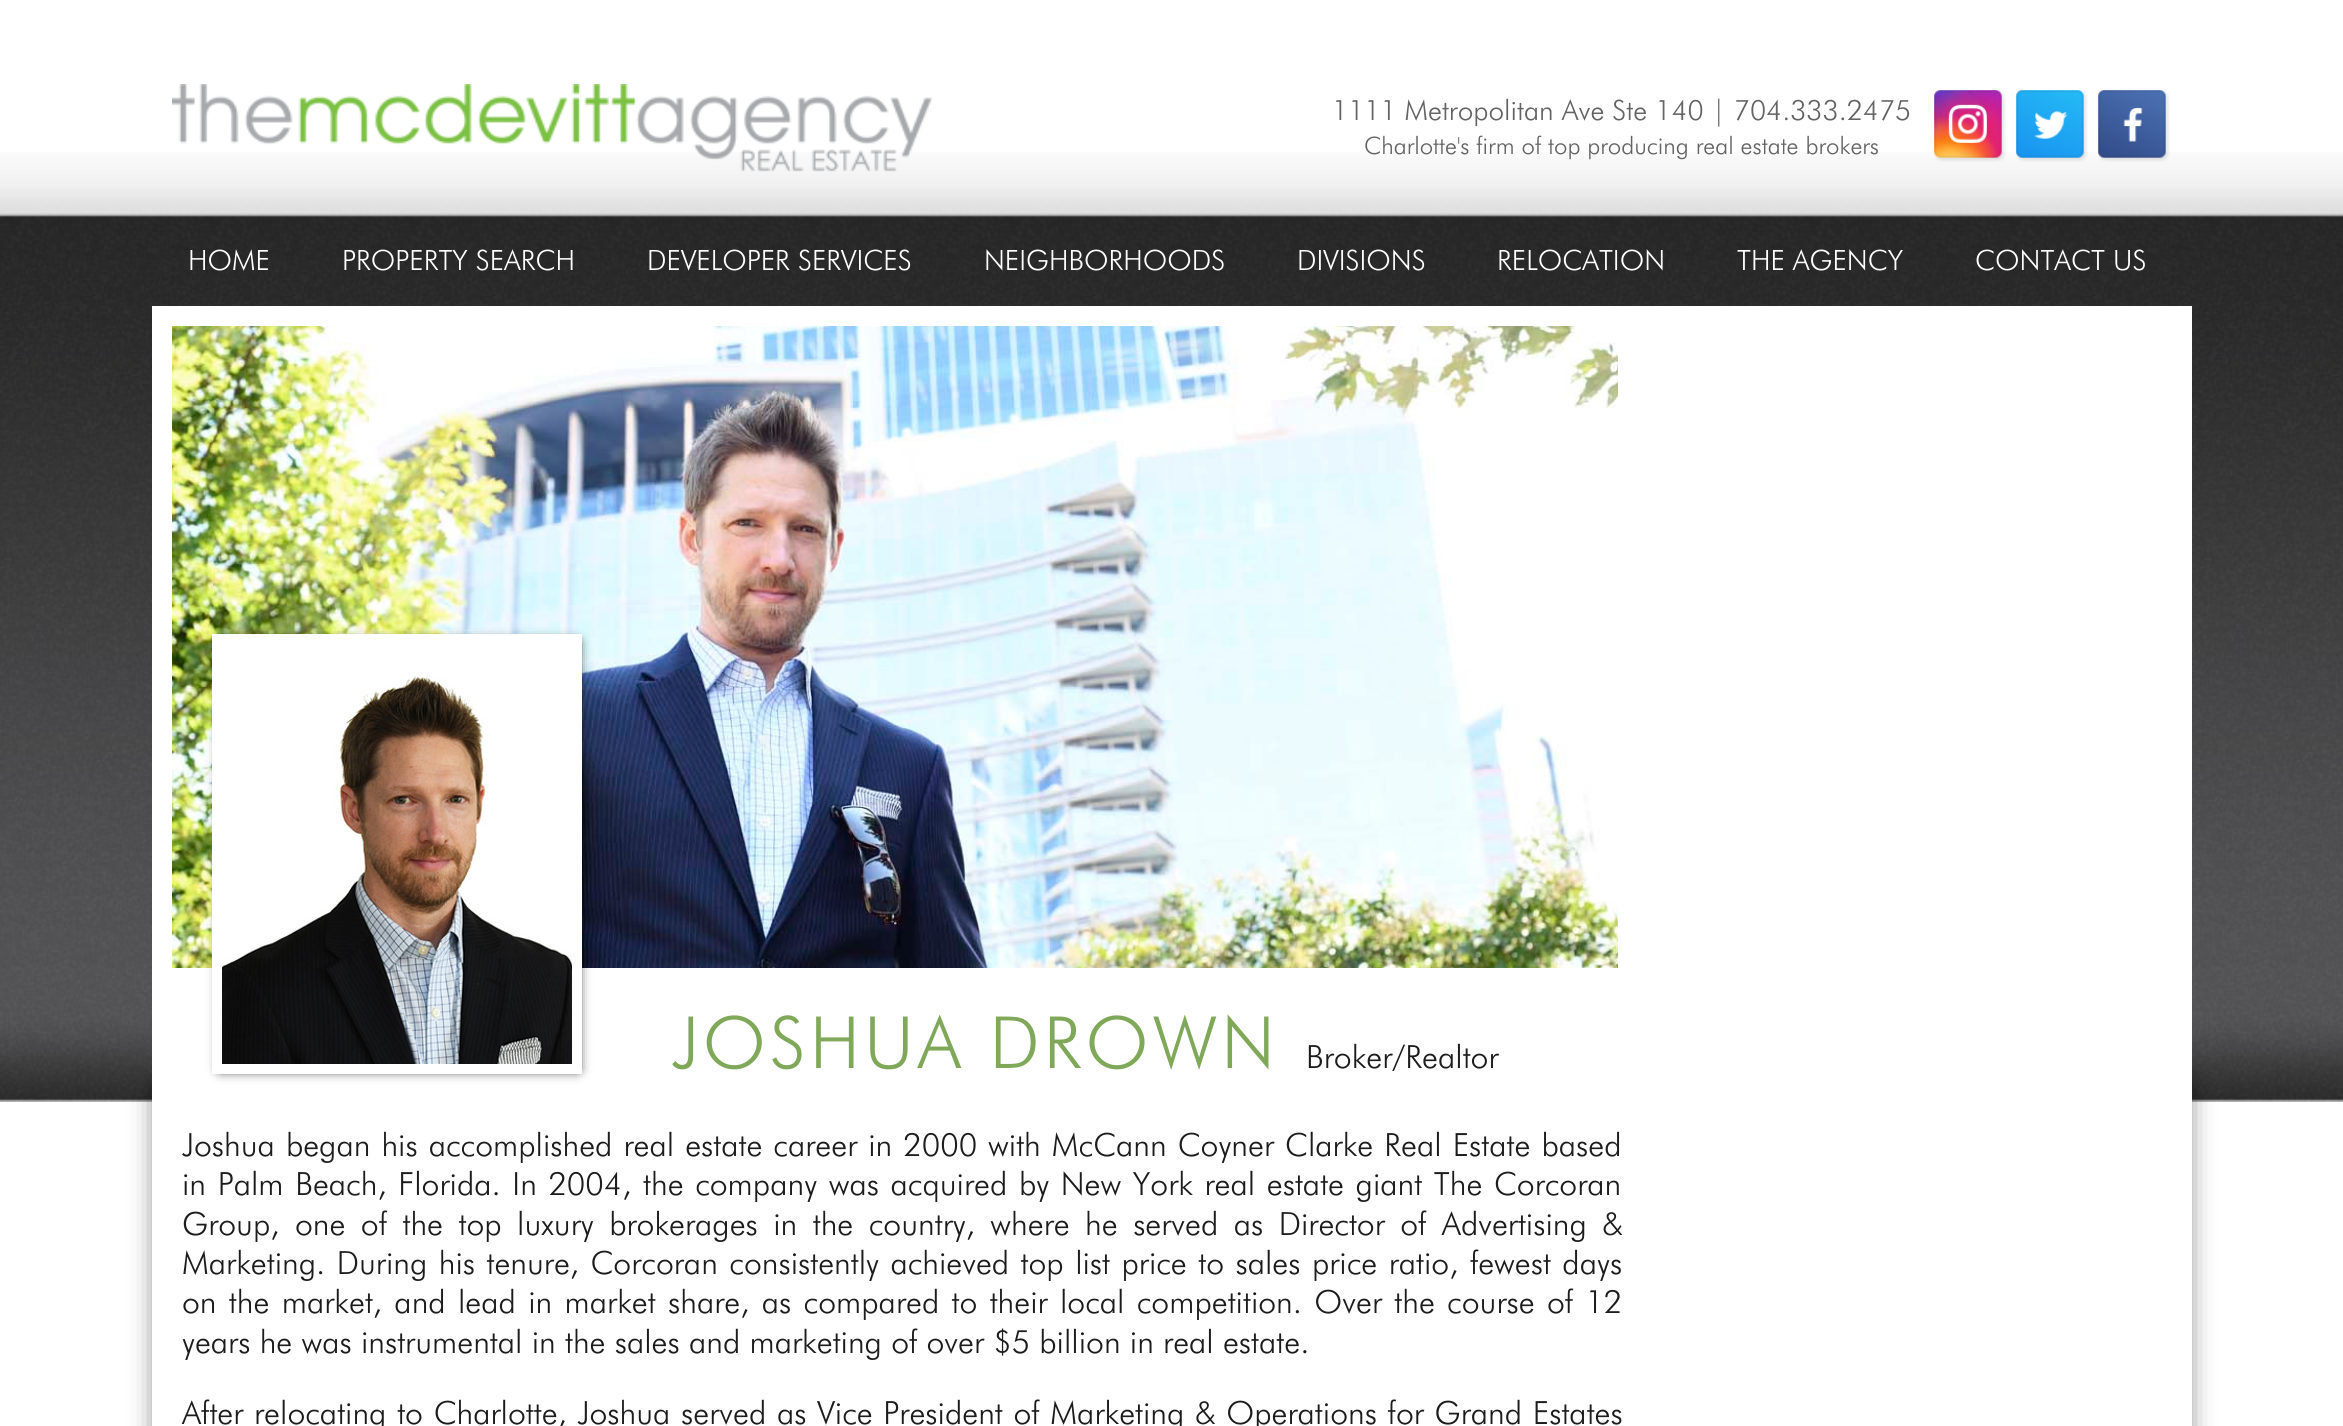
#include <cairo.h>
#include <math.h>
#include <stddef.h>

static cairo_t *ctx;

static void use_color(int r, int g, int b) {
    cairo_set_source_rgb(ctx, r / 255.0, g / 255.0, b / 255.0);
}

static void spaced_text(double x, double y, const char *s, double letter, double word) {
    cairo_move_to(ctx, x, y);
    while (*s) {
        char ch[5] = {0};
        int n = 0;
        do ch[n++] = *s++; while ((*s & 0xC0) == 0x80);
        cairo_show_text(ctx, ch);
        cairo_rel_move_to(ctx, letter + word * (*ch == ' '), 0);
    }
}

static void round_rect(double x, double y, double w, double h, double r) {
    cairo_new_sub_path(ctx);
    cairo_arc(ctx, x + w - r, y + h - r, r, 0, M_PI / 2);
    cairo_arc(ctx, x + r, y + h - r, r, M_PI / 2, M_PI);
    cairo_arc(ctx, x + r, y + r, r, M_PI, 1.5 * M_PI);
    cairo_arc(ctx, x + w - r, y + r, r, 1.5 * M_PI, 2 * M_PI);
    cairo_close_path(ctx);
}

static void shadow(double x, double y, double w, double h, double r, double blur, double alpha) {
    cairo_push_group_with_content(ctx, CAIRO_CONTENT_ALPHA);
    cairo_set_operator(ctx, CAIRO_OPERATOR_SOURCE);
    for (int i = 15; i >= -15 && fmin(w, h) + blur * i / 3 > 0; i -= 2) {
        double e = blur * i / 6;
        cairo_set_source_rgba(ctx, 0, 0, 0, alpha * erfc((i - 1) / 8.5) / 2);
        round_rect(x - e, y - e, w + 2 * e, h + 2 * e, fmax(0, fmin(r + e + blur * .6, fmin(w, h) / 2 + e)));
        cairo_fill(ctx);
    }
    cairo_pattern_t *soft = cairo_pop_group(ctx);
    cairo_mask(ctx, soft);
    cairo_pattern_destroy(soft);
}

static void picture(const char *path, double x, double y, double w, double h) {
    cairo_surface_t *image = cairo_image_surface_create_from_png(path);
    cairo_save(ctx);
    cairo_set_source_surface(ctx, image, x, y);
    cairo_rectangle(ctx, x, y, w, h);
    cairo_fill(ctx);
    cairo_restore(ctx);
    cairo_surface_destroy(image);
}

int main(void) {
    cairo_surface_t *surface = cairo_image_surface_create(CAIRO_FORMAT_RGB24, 2343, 1426);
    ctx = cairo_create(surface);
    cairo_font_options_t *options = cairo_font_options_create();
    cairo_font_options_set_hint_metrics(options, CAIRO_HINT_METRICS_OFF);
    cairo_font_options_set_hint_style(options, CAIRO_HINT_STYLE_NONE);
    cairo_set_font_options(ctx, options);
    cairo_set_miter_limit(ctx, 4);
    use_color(255, 255, 255);
    cairo_paint(ctx);
    picture("img1.png", 0, 152, 2343, 950);
    picture("img2.png", 172, 84, 760, 88);
    cairo_select_font_face(ctx, "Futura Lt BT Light", CAIRO_FONT_SLANT_NORMAL, CAIRO_FONT_WEIGHT_NORMAL);
    cairo_set_font_size(ctx, 28);
    use_color(99, 99, 99);
    cairo_move_to(ctx, 1332, 120);
    cairo_show_text(ctx, "1111 Metropolitan Ave Ste 140 | 704.333.2475");
    cairo_set_font_size(ctx, 24);
    cairo_move_to(ctx, 1364, 154);
    cairo_show_text(ctx, "Charlotte's firm of top producing real estate brokers");
    picture("img3.png", 1934, 90, 72, 72);
    picture("img4.png", 2016, 90, 72, 72);
    picture("img5.png", 2098, 90, 72, 72);
    cairo_set_font_size(ctx, 28);
    use_color(255, 255, 255);
    cairo_move_to(ctx, 188, 270);
    cairo_show_text(ctx, "HOME");
    cairo_move_to(ctx, 342, 270);
    cairo_show_text(ctx, "PROPERTY SEARCH");
    cairo_move_to(ctx, 647, 270);
    cairo_show_text(ctx, "DEVELOPER SERVICES");
    cairo_move_to(ctx, 984, 270);
    cairo_show_text(ctx, "NEIGHBORHOODS");
    cairo_move_to(ctx, 1297, 270);
    cairo_show_text(ctx, "DIVISIONS");
    cairo_move_to(ctx, 1497, 270);
    cairo_show_text(ctx, "RELOCATION");
    cairo_move_to(ctx, 1737, 270);
    cairo_show_text(ctx, "THE AGENCY");
    cairo_move_to(ctx, 1975, 270);
    cairo_show_text(ctx, "CONTACT US");
    use_color(0, 0, 0);
    shadow(164, 1090, 2016, 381, 0, 15, 1);
    use_color(255, 255, 255);
    cairo_rectangle(ctx, 152, 306, 2040, 1120);
    cairo_fill(ctx);
    picture("img6.png", 172, 326, 1446, 642);
    use_color(0, 0, 0);
    shadow(220, 642, 358, 428, 0, 6, 1);
    cairo_rectangle(ctx, 217, 639, 360, 430);
    use_color(255, 255, 255);
    cairo_set_line_width(ctx, 10);
    cairo_stroke(ctx);
    picture("img7.png", 222, 644, 350, 420);
    cairo_set_font_size(ctx, 72);
    use_color(127, 168, 88);
    spaced_text(672, 1068, "JOSHUA DROWN", 4, 0);
    cairo_set_font_size(ctx, 32);
    use_color(28, 28, 28);
    cairo_move_to(ctx, 1306, 1068);
    cairo_show_text(ctx, "Broker/Realtor");
    spaced_text(182, 1156, "Joshua began his accomplished real estate career in 2000 with McCann Coyner Clarke Real Estate based", 0, 1.8);
    spaced_text(182, 1195, "in Palm Beach, Florida. In 2004, the company was acquired by New York real estate giant The Corcoran", 0, 2.4);
    spaced_text(182, 1235, "Group, one of the top luxury brokerages in the country, where he served as Director of Advertising &", 0, 6.25);
    spaced_text(182, 1274, "Marketing. During his tenure, Corcoran consistently achieved top list price to sales price ratio, fewest days", 0, 2.25);
    spaced_text(182, 1313, "on the market, and lead in market share, as compared to their local competition. Over the course of 12", 0, 3.1);
    cairo_move_to(ctx, 182, 1353);
    cairo_show_text(ctx, "years he was instrumental in the sales and marketing of over $5 billion in real estate.");
    spaced_text(182, 1424, "After relocating to Charlotte, Joshua served as Vice President of Marketing & Operations for Grand Estates", 0, 1.5);
    cairo_surface_write_to_png(surface, "result.png");
    cairo_font_options_destroy(options);
    cairo_destroy(ctx);
    cairo_surface_destroy(surface);
    return 0;
}
